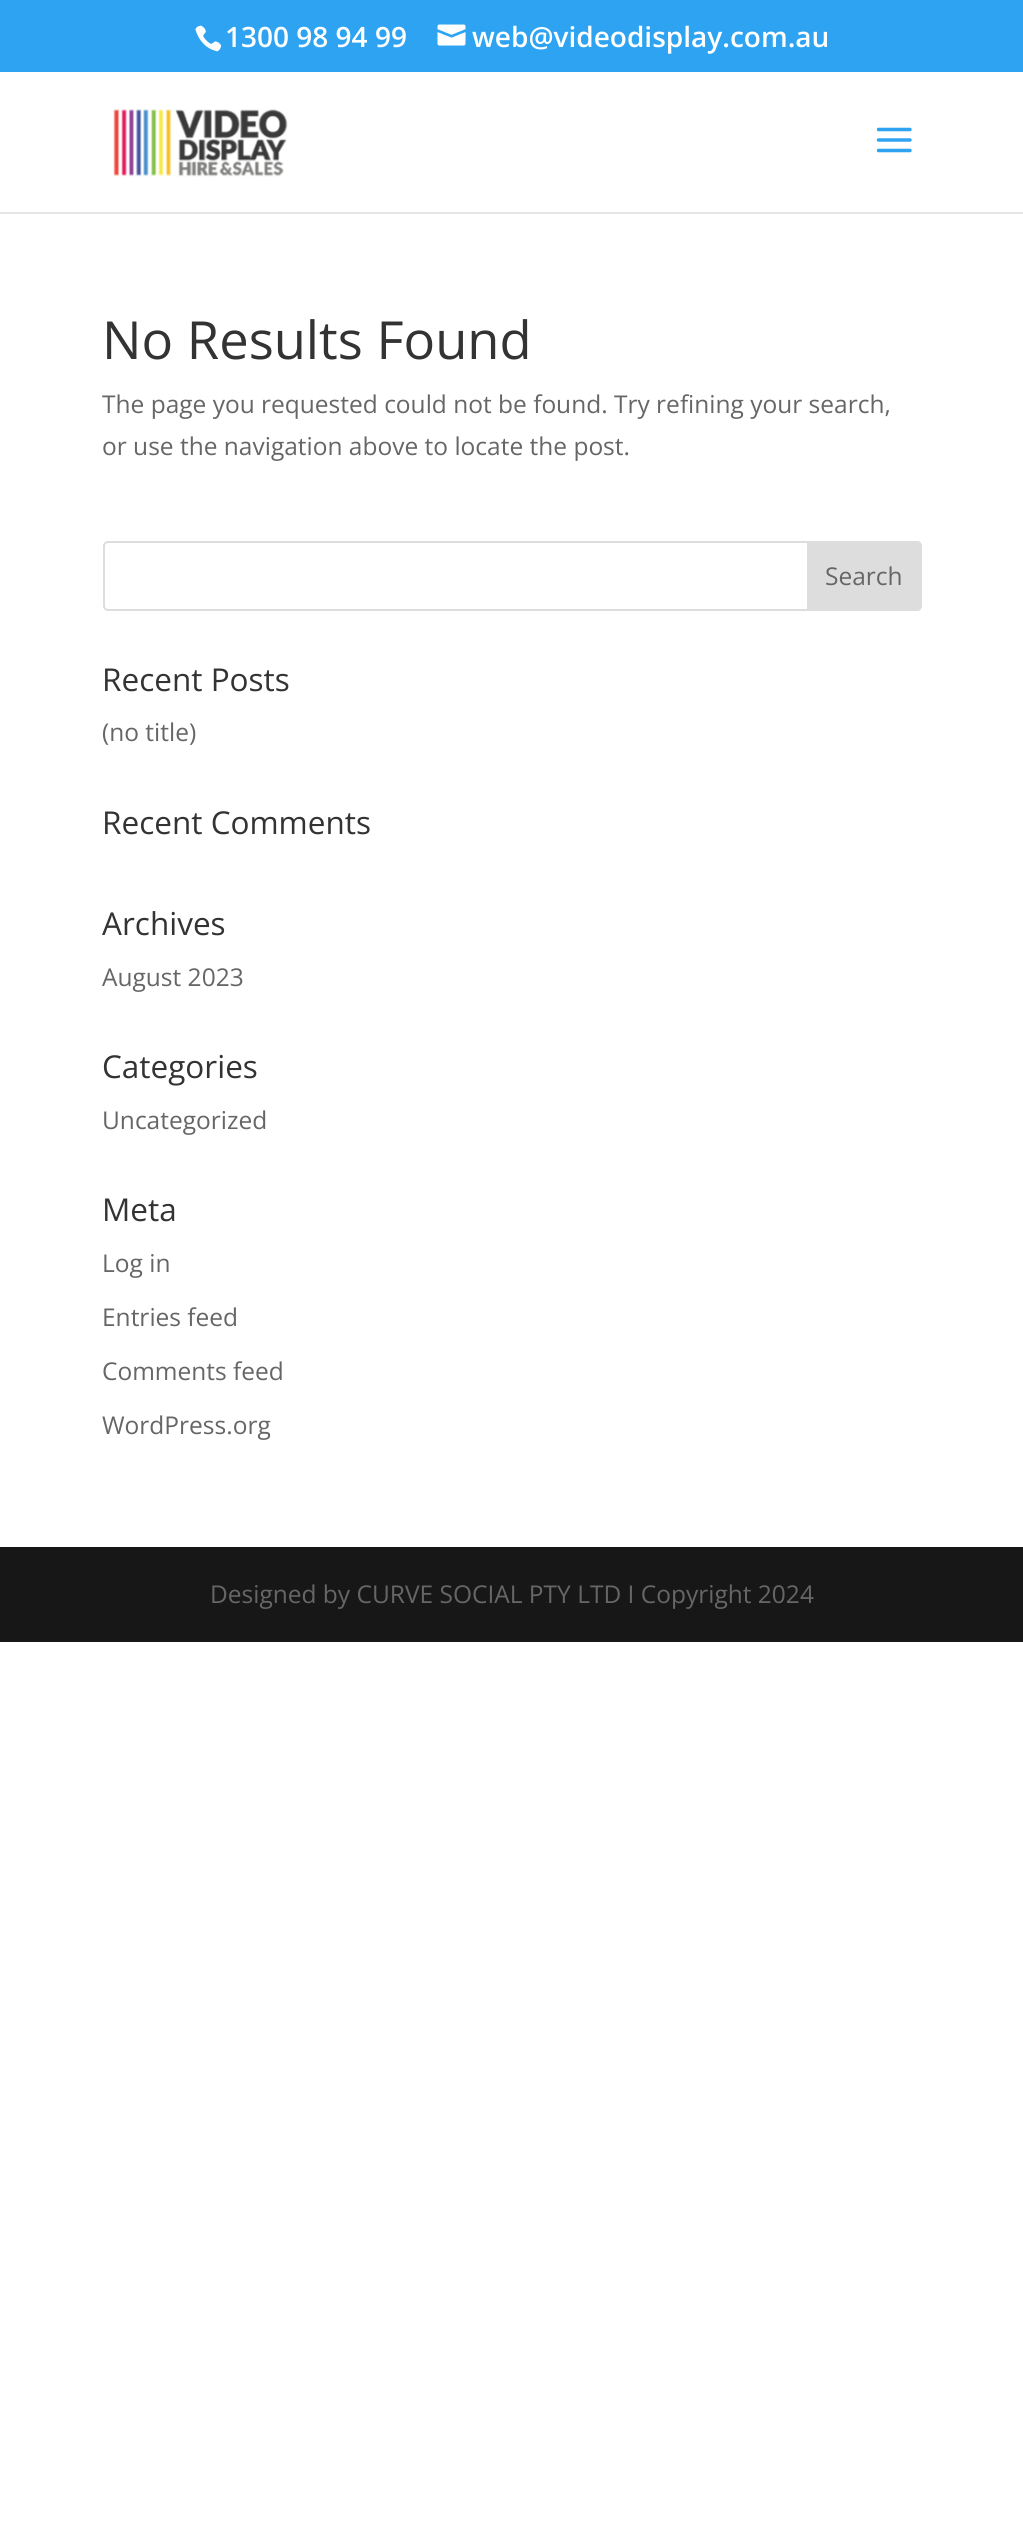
#include <cairo.h>
#include <math.h>
#include <stddef.h>

static cairo_t *ctx;

static void use_color(int r, int g, int b) {
    cairo_set_source_rgb(ctx, r / 255.0, g / 255.0, b / 255.0);
}

static void round_rect(double x, double y, double w, double h, double r) {
    cairo_new_sub_path(ctx);
    cairo_arc(ctx, x + w - r, y + h - r, r, 0, M_PI / 2);
    cairo_arc(ctx, x + r, y + h - r, r, M_PI / 2, M_PI);
    cairo_arc(ctx, x + r, y + r, r, M_PI, 1.5 * M_PI);
    cairo_arc(ctx, x + w - r, y + r, r, 1.5 * M_PI, 2 * M_PI);
    cairo_close_path(ctx);
}

static void picture(const char *path, double x, double y, double w, double h) {
    cairo_surface_t *image = cairo_image_surface_create_from_png(path);
    cairo_save(ctx);
    cairo_set_source_surface(ctx, image, x, y);
    cairo_rectangle(ctx, x, y, w, h);
    cairo_fill(ctx);
    cairo_restore(ctx);
    cairo_surface_destroy(image);
}

int main(void) {
    cairo_surface_t *surface = cairo_image_surface_create(CAIRO_FORMAT_RGB24, 1023, 2533);
    ctx = cairo_create(surface);
    cairo_font_options_t *options = cairo_font_options_create();
    cairo_font_options_set_hint_metrics(options, CAIRO_HINT_METRICS_OFF);
    cairo_font_options_set_hint_style(options, CAIRO_HINT_STYLE_NONE);
    cairo_set_font_options(ctx, options);
    cairo_set_miter_limit(ctx, 4);
    use_color(255, 255, 255);
    cairo_paint(ctx);
    use_color(46, 163, 242);
    cairo_rectangle(ctx, 0, 0, 1023, 72);
    cairo_fill(ctx);
    picture("img1.png", 195, 25, 27, 27);
    cairo_select_font_face(ctx, "Open Sans SemiBold", CAIRO_FONT_SLANT_NORMAL, CAIRO_FONT_WEIGHT_NORMAL);
    cairo_set_font_size(ctx, 28);
    use_color(255, 255, 255);
    cairo_move_to(ctx, 225, 47);
    cairo_show_text(ctx, "1300 98 94 99");
    picture("img2.png", 437, 24, 29, 22);
    cairo_move_to(ctx, 472, 47);
    cairo_show_text(ctx, "web@videodisplay.com.au");
    use_color(230, 230, 230);
    cairo_new_path(ctx);
    cairo_move_to(ctx, 0, 212);
    cairo_line_to(ctx, 0, 214);
    cairo_line_to(ctx, 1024, 214);
    cairo_line_to(ctx, 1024, 74);
    cairo_line_to(ctx, 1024, 212);
    cairo_close_path(ctx);
    cairo_fill(ctx);
    picture("img3.png", 113, 109, 175, 68);
    picture("img4.png", 876, 127, 36, 26);
    cairo_select_font_face(ctx, "Open Sans", CAIRO_FONT_SLANT_NORMAL, CAIRO_FONT_WEIGHT_NORMAL);
    cairo_set_font_size(ctx, 52.5);
    use_color(51, 51, 51);
    cairo_move_to(ctx, 102, 359);
    cairo_show_text(ctx, "No Results Found");
    cairo_set_font_size(ctx, 24.5);
    use_color(102, 102, 102);
    cairo_move_to(ctx, 102, 413);
    cairo_show_text(ctx, "The page you requested could not be found. Try refining your search,");
    cairo_move_to(ctx, 102, 455);
    cairo_show_text(ctx, "or use the navigation above to locate the post.");
    round_rect(104, 542, 817, 68, 4);
    use_color(221, 221, 221);
    cairo_stroke(ctx);
    cairo_new_path(ctx);
    cairo_move_to(ctx, 808, 542);
    cairo_line_to(ctx, 917, 542);
    cairo_curve_to(ctx, 919, 542, 921, 544, 921, 546);
    cairo_line_to(ctx, 921, 606);
    cairo_curve_to(ctx, 921, 608, 919, 610, 917, 610);
    cairo_line_to(ctx, 808, 610);
    cairo_close_path(ctx);
    cairo_fill_preserve(ctx);
    cairo_stroke(ctx);
    use_color(102, 102, 102);
    cairo_move_to(ctx, 825, 585);
    cairo_show_text(ctx, "Search");
    cairo_set_font_size(ctx, 31.5);
    use_color(51, 51, 51);
    cairo_move_to(ctx, 102, 691);
    cairo_show_text(ctx, "Recent Posts");
    cairo_set_font_size(ctx, 24.5);
    use_color(102, 102, 102);
    cairo_move_to(ctx, 102, 741);
    cairo_show_text(ctx, "(no title)");
    cairo_set_font_size(ctx, 31.5);
    use_color(51, 51, 51);
    cairo_move_to(ctx, 102, 834);
    cairo_show_text(ctx, "Recent Comments");
    cairo_move_to(ctx, 102, 935);
    cairo_show_text(ctx, "Archives");
    cairo_set_font_size(ctx, 24.5);
    use_color(102, 102, 102);
    cairo_move_to(ctx, 102, 986);
    cairo_show_text(ctx, "August 2023");
    cairo_set_font_size(ctx, 31.5);
    use_color(51, 51, 51);
    cairo_move_to(ctx, 102, 1078);
    cairo_show_text(ctx, "Categories");
    cairo_set_font_size(ctx, 24.5);
    use_color(102, 102, 102);
    cairo_move_to(ctx, 102, 1129);
    cairo_show_text(ctx, "Uncategorized");
    cairo_set_font_size(ctx, 31.5);
    use_color(51, 51, 51);
    cairo_move_to(ctx, 102, 1221);
    cairo_show_text(ctx, "Meta");
    cairo_set_font_size(ctx, 24.5);
    use_color(102, 102, 102);
    cairo_move_to(ctx, 102, 1272);
    cairo_show_text(ctx, "Log in");
    cairo_move_to(ctx, 102, 1326);
    cairo_show_text(ctx, "Entries feed");
    cairo_move_to(ctx, 102, 1380);
    cairo_show_text(ctx, "Comments feed");
    cairo_move_to(ctx, 102, 1434);
    cairo_show_text(ctx, "WordPress.org");
    use_color(23, 23, 23);
    cairo_rectangle(ctx, 0, 1547, 1023, 95);
    cairo_fill(ctx);
    use_color(102, 102, 102);
    cairo_move_to(ctx, 210, 1603);
    cairo_show_text(ctx, "Designed by CURVE SOCIAL PTY LTD I Copyright 2024");
    cairo_surface_write_to_png(surface, "result.png");
    cairo_font_options_destroy(options);
    cairo_destroy(ctx);
    cairo_surface_destroy(surface);
    return 0;
}
